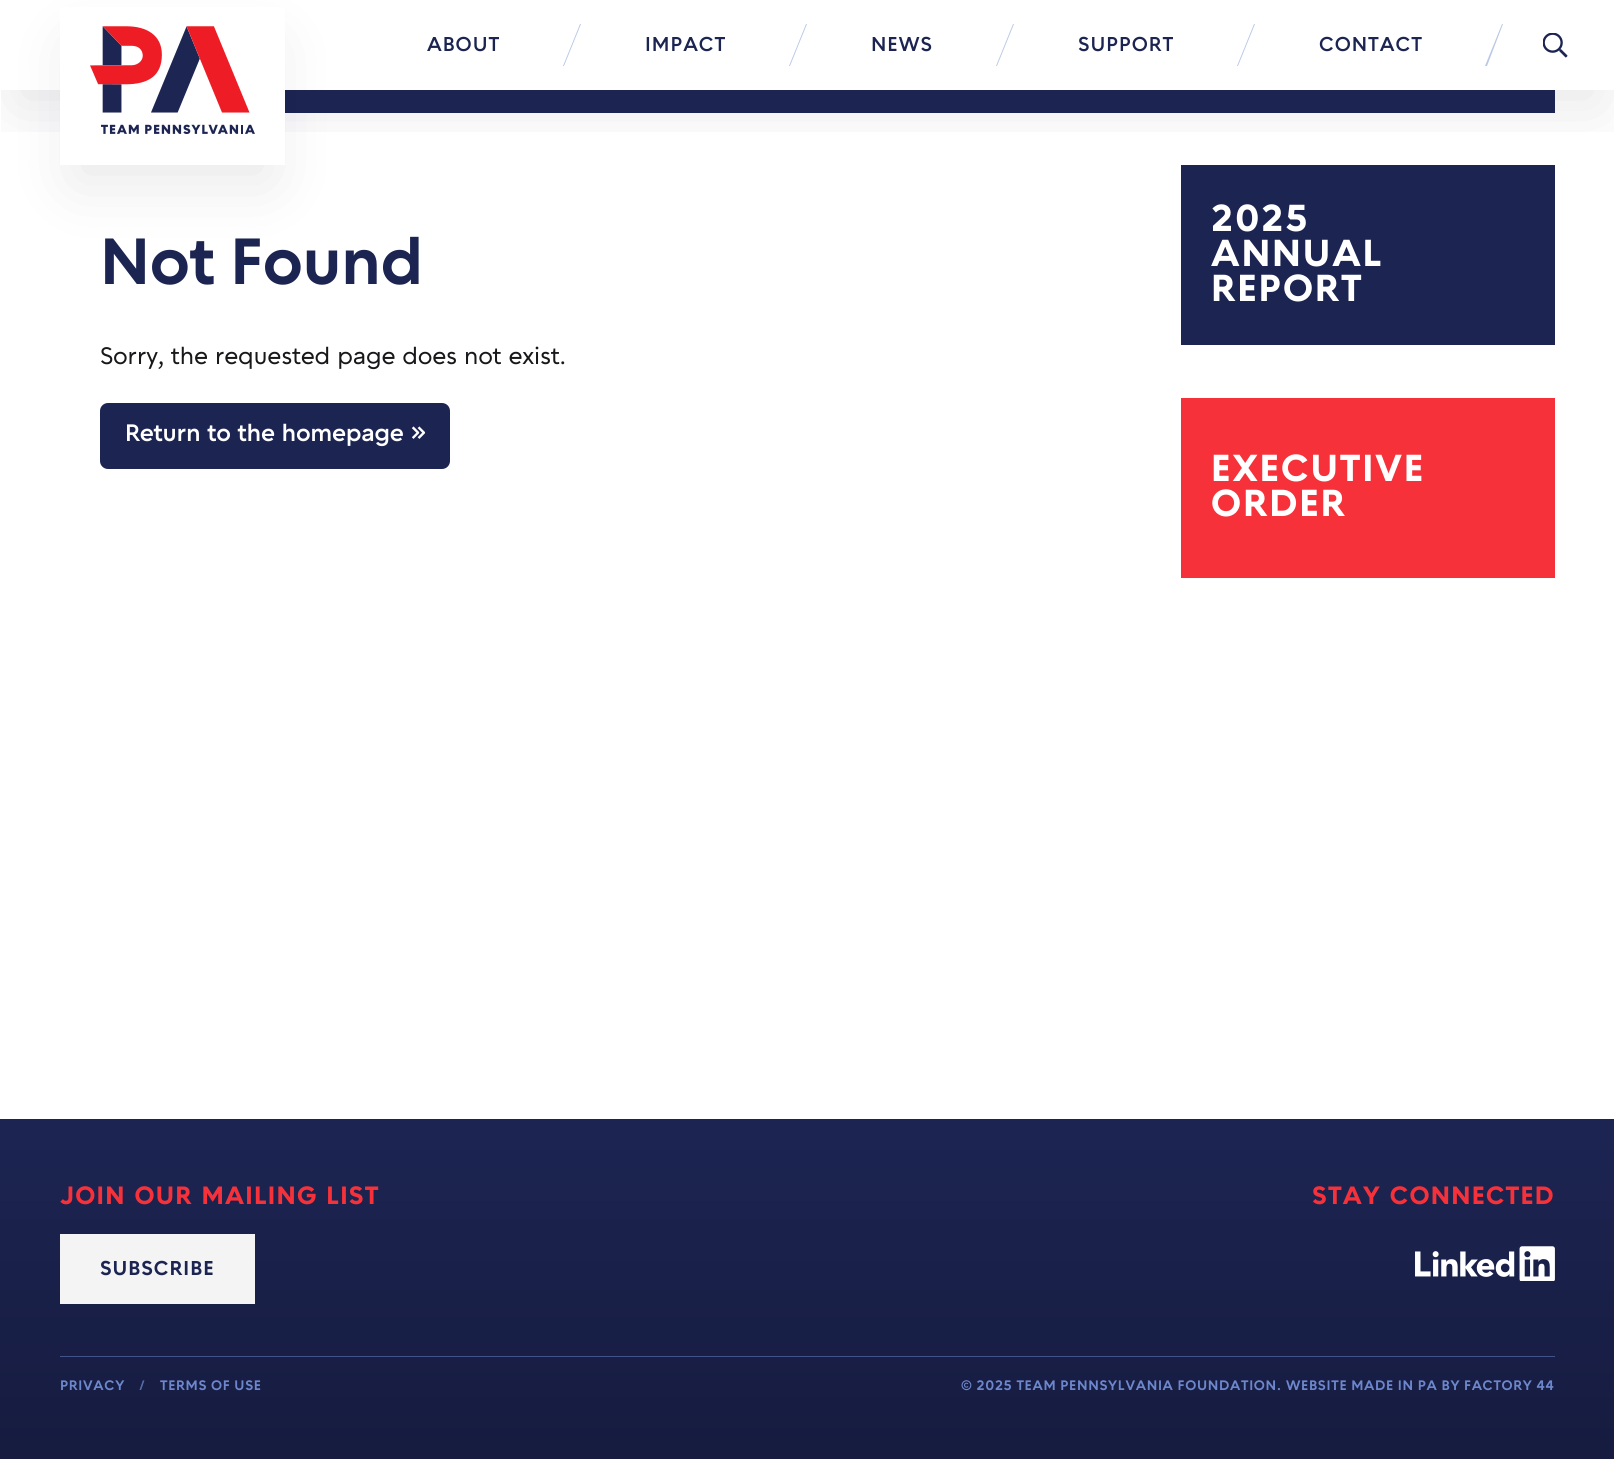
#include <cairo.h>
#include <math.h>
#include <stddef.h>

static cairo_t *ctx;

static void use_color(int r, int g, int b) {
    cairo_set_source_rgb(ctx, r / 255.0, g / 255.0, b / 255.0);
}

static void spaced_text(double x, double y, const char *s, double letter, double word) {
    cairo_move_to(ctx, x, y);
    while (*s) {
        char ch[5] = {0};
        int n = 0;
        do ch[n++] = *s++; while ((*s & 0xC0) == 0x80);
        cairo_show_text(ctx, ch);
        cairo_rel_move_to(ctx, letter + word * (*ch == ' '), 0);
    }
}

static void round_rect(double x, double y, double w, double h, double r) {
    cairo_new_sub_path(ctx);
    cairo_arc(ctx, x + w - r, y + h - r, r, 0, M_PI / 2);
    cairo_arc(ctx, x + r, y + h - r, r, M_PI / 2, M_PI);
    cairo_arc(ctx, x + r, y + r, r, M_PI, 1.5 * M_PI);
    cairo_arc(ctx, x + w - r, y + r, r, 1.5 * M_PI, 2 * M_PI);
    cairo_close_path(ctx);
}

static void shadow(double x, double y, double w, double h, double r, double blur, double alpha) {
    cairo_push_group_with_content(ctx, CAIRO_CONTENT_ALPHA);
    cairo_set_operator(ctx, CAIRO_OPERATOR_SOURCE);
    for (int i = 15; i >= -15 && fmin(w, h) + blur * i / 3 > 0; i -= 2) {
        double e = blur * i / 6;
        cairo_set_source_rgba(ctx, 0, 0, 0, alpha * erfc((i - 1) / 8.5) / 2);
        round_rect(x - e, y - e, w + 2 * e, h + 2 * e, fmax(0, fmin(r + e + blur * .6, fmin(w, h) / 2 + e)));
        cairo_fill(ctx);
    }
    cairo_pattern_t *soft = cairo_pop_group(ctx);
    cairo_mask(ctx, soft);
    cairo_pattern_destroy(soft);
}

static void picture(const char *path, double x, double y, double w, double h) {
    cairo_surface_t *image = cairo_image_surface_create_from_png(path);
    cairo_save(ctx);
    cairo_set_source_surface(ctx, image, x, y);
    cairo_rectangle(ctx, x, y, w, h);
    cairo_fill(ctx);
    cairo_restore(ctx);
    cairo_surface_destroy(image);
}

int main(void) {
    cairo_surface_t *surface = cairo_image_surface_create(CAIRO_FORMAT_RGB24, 1614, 1459);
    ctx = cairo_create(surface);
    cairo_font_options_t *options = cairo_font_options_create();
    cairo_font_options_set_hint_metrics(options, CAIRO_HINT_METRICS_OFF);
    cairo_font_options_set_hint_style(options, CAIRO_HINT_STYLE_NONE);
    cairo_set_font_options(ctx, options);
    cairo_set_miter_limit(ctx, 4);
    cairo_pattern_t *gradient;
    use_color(255, 255, 255);
    cairo_paint(ctx);
    cairo_save(ctx);
    cairo_rectangle(ctx, 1, 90, 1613, 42);
    cairo_clip(ctx);
    use_color(12, 14, 34);
    shadow(15, 46, 1585, 60, 0, 31, 0.1);
    cairo_restore(ctx);
    use_color(28, 37, 82);
    cairo_rectangle(ctx, 285, 90, 1270, 23);
    cairo_fill(ctx);
    use_color(12, 14, 34);
    shadow(75, 46, 195, 135, 0, 31, 0.1);
    use_color(255, 255, 255);
    cairo_rectangle(ctx, 60, 7, 225, 158);
    cairo_fill(ctx);
    picture("img1.png", 90, 26, 165, 108);
    cairo_select_font_face(ctx, "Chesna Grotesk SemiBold", CAIRO_FONT_SLANT_NORMAL, CAIRO_FONT_WEIGHT_NORMAL);
    cairo_set_font_size(ctx, 20);
    use_color(28, 37, 82);
    spaced_text(427, 51, "ABOUT", 1, 0);
    use_color(185, 200, 231);
    cairo_new_path(ctx);
    cairo_move_to(ctx, 580, 24);
    cairo_line_to(ctx, 581, 24);
    cairo_line_to(ctx, 564, 66);
    cairo_line_to(ctx, 563, 66);
    cairo_close_path(ctx);
    cairo_fill(ctx);
    use_color(28, 37, 82);
    spaced_text(645, 51, "IMPACT", 1, 0);
    use_color(185, 200, 231);
    cairo_new_path(ctx);
    cairo_move_to(ctx, 806, 24);
    cairo_line_to(ctx, 807, 24);
    cairo_line_to(ctx, 790, 66);
    cairo_line_to(ctx, 789, 66);
    cairo_close_path(ctx);
    cairo_fill(ctx);
    use_color(28, 37, 82);
    spaced_text(871, 51, "NEWS", 1, 0);
    use_color(185, 200, 231);
    cairo_new_path(ctx);
    cairo_move_to(ctx, 1013, 24);
    cairo_line_to(ctx, 1014, 24);
    cairo_line_to(ctx, 997, 66);
    cairo_line_to(ctx, 996, 66);
    cairo_close_path(ctx);
    cairo_fill(ctx);
    use_color(28, 37, 82);
    spaced_text(1078, 51, "SUPPORT", 1, 0);
    use_color(185, 200, 231);
    cairo_new_path(ctx);
    cairo_move_to(ctx, 1254, 24);
    cairo_line_to(ctx, 1255, 24);
    cairo_line_to(ctx, 1238, 66);
    cairo_line_to(ctx, 1237, 66);
    cairo_close_path(ctx);
    cairo_fill(ctx);
    use_color(28, 37, 82);
    spaced_text(1319, 51, "CONTACT", 1, 0);
    use_color(185, 200, 231);
    cairo_new_path(ctx);
    cairo_move_to(ctx, 1502, 24);
    cairo_line_to(ctx, 1503, 24);
    cairo_line_to(ctx, 1487, 66);
    cairo_line_to(ctx, 1485, 66);
    cairo_close_path(ctx);
    cairo_fill(ctx);
    picture("img2.png", 1543, 33, 25, 25);
    cairo_select_font_face(ctx, "Chesna Grotesk", CAIRO_FONT_SLANT_NORMAL, CAIRO_FONT_WEIGHT_BOLD);
    cairo_set_font_size(ctx, 65);
    use_color(28, 37, 82);
    spaced_text(100, 284, "Not Found", -0.3, 2.5);
    cairo_select_font_face(ctx, "Chesna Grotesk", CAIRO_FONT_SLANT_NORMAL, CAIRO_FONT_WEIGHT_NORMAL);
    cairo_set_font_size(ctx, 23.75);
    use_color(24, 24, 27);
    spaced_text(100, 364, "Sorry, the requested page does not exist.", -0.3, 2.5);
    use_color(28, 37, 82);
    round_rect(100, 403, 350, 66, 8);
    cairo_fill(ctx);
    cairo_select_font_face(ctx, "Chesna Grotesk SemiBold", CAIRO_FONT_SLANT_NORMAL, CAIRO_FONT_WEIGHT_NORMAL);
    use_color(255, 255, 255);
    spaced_text(125, 441, "Return to the homepage »", -0.3, 2.5);
    use_color(28, 37, 82);
    cairo_rectangle(ctx, 1181, 165, 374, 180);
    cairo_fill(ctx);
    cairo_select_font_face(ctx, "Chesna Grotesk ExtraBold", CAIRO_FONT_SLANT_NORMAL, CAIRO_FONT_WEIGHT_NORMAL);
    cairo_set_font_size(ctx, 37.5);
    use_color(255, 255, 255);
    spaced_text(1211, 231, "2025", 1.9, 0);
    spaced_text(1211, 266, "ANNUAL", 1.9, 0);
    spaced_text(1211, 301, "REPORT", 1.9, 0);
    use_color(246, 49, 58);
    cairo_rectangle(ctx, 1181, 398, 374, 180);
    cairo_fill(ctx);
    use_color(255, 255, 255);
    spaced_text(1211, 481, "EXECUTIVE", 1.9, 0);
    spaced_text(1211, 516, "ORDER", 1.9, 0);
    gradient = cairo_pattern_create_linear(808, 1119, 808, 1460);
    cairo_pattern_add_color_stop_rgba(gradient, 0, 0.11, 0.145, 0.322, 1);
    cairo_pattern_add_color_stop_rgba(gradient, 1, 0.086, 0.106, 0.247, 1);
    cairo_set_source(ctx, gradient);
    cairo_pattern_destroy(gradient);
    cairo_rectangle(ctx, 0, 1119, 1614, 340);
    cairo_fill(ctx);
    cairo_set_font_size(ctx, 25);
    use_color(246, 49, 58);
    spaced_text(60, 1204, "JOIN OUR MAILING LIST", 1.25, 2.5);
    use_color(244, 244, 245);
    cairo_rectangle(ctx, 60, 1234, 195, 70);
    cairo_fill(ctx);
    cairo_select_font_face(ctx, "Chesna Grotesk", CAIRO_FONT_SLANT_NORMAL, CAIRO_FONT_WEIGHT_BOLD);
    cairo_set_font_size(ctx, 20);
    use_color(28, 37, 82);
    spaced_text(100, 1275, "SUBSCRIBE", 1, 0);
    cairo_select_font_face(ctx, "Chesna Grotesk ExtraBold", CAIRO_FONT_SLANT_NORMAL, CAIRO_FONT_WEIGHT_NORMAL);
    cairo_set_font_size(ctx, 25);
    use_color(246, 49, 58);
    spaced_text(1312, 1204, "STAY CONNECTED", 1.25, 2.5);
    picture("img3.png", 1415, 1246, 140, 35);
    use_color(67, 83, 137);
    cairo_rectangle(ctx, 60, 1356, 1495, 1);
    cairo_fill(ctx);
    cairo_select_font_face(ctx, "Chesna Grotesk", CAIRO_FONT_SLANT_NORMAL, CAIRO_FONT_WEIGHT_BOLD);
    cairo_set_font_size(ctx, 13.75);
    use_color(109, 135, 205);
    spaced_text(60, 1390, "PRIVACY", 0.7, 0);
    use_color(88, 109, 171);
    spaced_text(139, 1390, "/", 0.7, 0);
    use_color(109, 135, 205);
    spaced_text(160, 1390, "TERMS OF USE", 0.7, 0.5);
    spaced_text(961, 1390, "© 2025 TEAM PENNSYLVANIA FOUNDATION.", 0.7, 0.5);
    spaced_text(1286, 1390, "WEBSITE MADE IN PA BY", 0.7, 0.5);
    spaced_text(1464, 1390, "FACTORY 44", 0.7, 0.5);
    cairo_surface_write_to_png(surface, "result.png");
    cairo_font_options_destroy(options);
    cairo_destroy(ctx);
    cairo_surface_destroy(surface);
    return 0;
}
